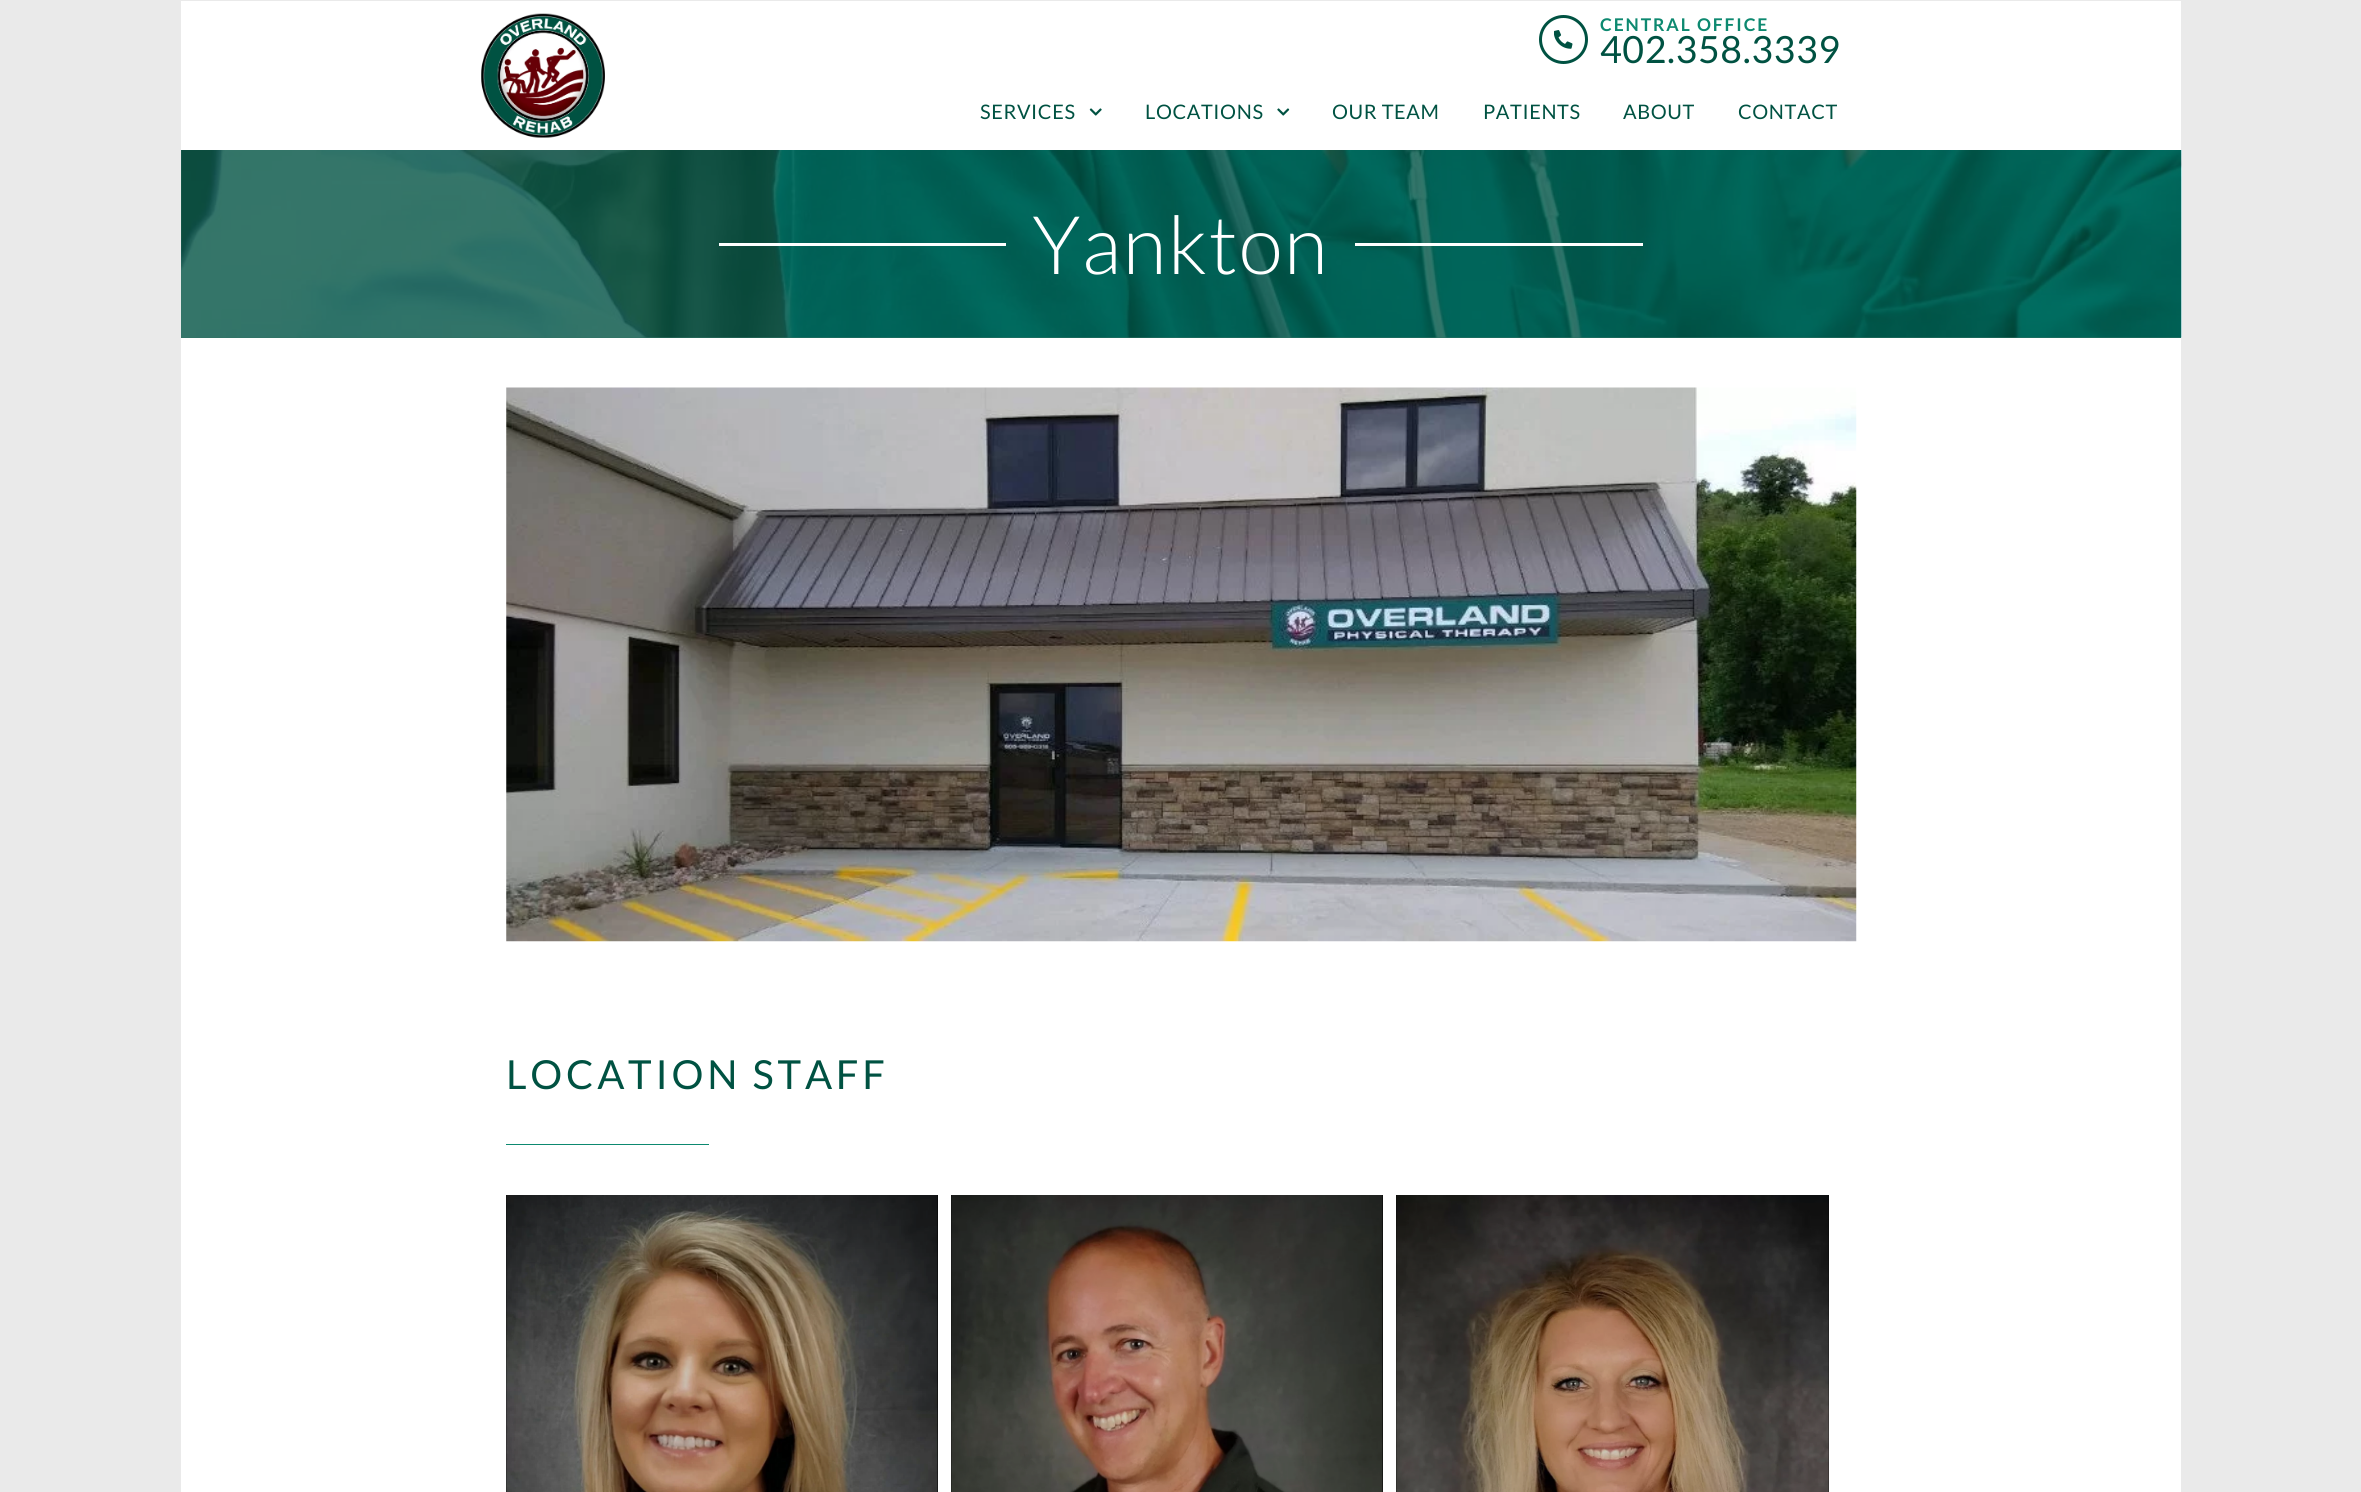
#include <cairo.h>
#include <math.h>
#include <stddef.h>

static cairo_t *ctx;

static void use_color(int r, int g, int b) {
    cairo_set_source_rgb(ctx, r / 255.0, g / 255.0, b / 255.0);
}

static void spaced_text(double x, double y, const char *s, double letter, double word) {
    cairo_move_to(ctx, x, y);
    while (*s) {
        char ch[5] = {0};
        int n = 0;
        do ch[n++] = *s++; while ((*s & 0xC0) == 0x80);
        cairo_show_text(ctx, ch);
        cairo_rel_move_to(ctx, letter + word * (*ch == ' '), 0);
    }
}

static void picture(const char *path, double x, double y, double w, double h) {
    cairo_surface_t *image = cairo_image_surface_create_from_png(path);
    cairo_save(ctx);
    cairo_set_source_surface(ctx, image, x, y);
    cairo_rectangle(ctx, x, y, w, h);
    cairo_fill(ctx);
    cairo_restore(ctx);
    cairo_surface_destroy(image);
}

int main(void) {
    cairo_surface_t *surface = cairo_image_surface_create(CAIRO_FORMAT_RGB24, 2361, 1492);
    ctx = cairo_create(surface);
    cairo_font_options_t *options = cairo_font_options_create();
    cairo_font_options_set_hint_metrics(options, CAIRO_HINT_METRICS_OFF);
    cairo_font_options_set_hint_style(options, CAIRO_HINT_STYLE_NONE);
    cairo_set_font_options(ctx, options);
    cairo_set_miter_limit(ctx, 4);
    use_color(234, 234, 234);
    cairo_paint(ctx);
    use_color(49, 114, 101);
    cairo_rectangle(ctx, 181, 150, 2000, 188);
    cairo_fill(ctx);
    use_color(255, 255, 255);
    cairo_rectangle(ctx, 181, 1, 2000, 149);
    cairo_fill(ctx);
    picture("img1.png", 481, 13, 124, 125);
    cairo_arc(ctx, 1563.5, 39.5, 23, 0, 2 * M_PI);
    use_color(0, 82, 66);
    cairo_set_line_width(ctx, 3);
    cairo_stroke(ctx);
    picture("img2.png", 1554, 30, 19, 19);
    cairo_select_font_face(ctx, "Lato", CAIRO_FONT_SLANT_NORMAL, CAIRO_FONT_WEIGHT_BOLD);
    cairo_set_font_size(ctx, 17.5);
    use_color(13, 137, 112);
    spaced_text(1600, 31, "CENTRAL OFFICE", 1.9, 0);
    cairo_select_font_face(ctx, "Lato", CAIRO_FONT_SLANT_NORMAL, CAIRO_FONT_WEIGHT_NORMAL);
    cairo_set_font_size(ctx, 37.5);
    use_color(0, 82, 66);
    spaced_text(1600, 63, "402.358.3339", 0.6, 0);
    cairo_set_font_size(ctx, 20);
    spaced_text(980, 119, "SERVICES", 0.6, 0);
    picture("img3.png", 1089, 108, 13, 8);
    spaced_text(1145, 119, "LOCATIONS", 0.6, 0);
    picture("img4.png", 1277, 108, 13, 8);
    spaced_text(1332, 119, "OUR TEAM", 0.6, 0);
    spaced_text(1483, 119, "PATIENTS", 0.6, 0);
    spaced_text(1623, 119, "ABOUT", 0.6, 0);
    spaced_text(1738, 119, "CONTACT", 0.6, 0);
    picture("img5.png", 181, 150, 2001, 188);
    use_color(255, 255, 255);
    cairo_rectangle(ctx, 719, 243, 287, 3);
    cairo_fill(ctx);
    cairo_select_font_face(ctx, "Lato Light", CAIRO_FONT_SLANT_NORMAL, CAIRO_FONT_WEIGHT_NORMAL);
    cairo_set_font_size(ctx, 81);
    spaced_text(1032, 274, "Yankton", 1.25, 0);
    cairo_rectangle(ctx, 1355, 243, 288, 3);
    cairo_fill(ctx);
    cairo_rectangle(ctx, 181, 338, 2000, 1154);
    cairo_fill(ctx);
    picture("img6.png", 506, 387, 1351, 555);
    cairo_select_font_face(ctx, "Lato", CAIRO_FONT_SLANT_NORMAL, CAIRO_FONT_WEIGHT_NORMAL);
    cairo_set_font_size(ctx, 40);
    use_color(0, 82, 66);
    spaced_text(506, 1089, "LOCATION STAFF", 3.75, 0);
    use_color(13, 137, 112);
    cairo_rectangle(ctx, 506, 1144, 203, 1);
    cairo_fill(ctx);
    use_color(0, 0, 0);
    cairo_rectangle(ctx, 506, 1195, 432, 297);
    cairo_fill(ctx);
    picture("img7.png", 506, 1195, 432, 297);
    cairo_rectangle(ctx, 951, 1195, 432, 297);
    cairo_fill(ctx);
    picture("img8.png", 951, 1195, 432, 297);
    cairo_rectangle(ctx, 1396, 1195, 433, 297);
    cairo_fill(ctx);
    picture("img9.png", 1396, 1195, 433, 297);
    cairo_surface_write_to_png(surface, "result.png");
    cairo_font_options_destroy(options);
    cairo_destroy(ctx);
    cairo_surface_destroy(surface);
    return 0;
}
